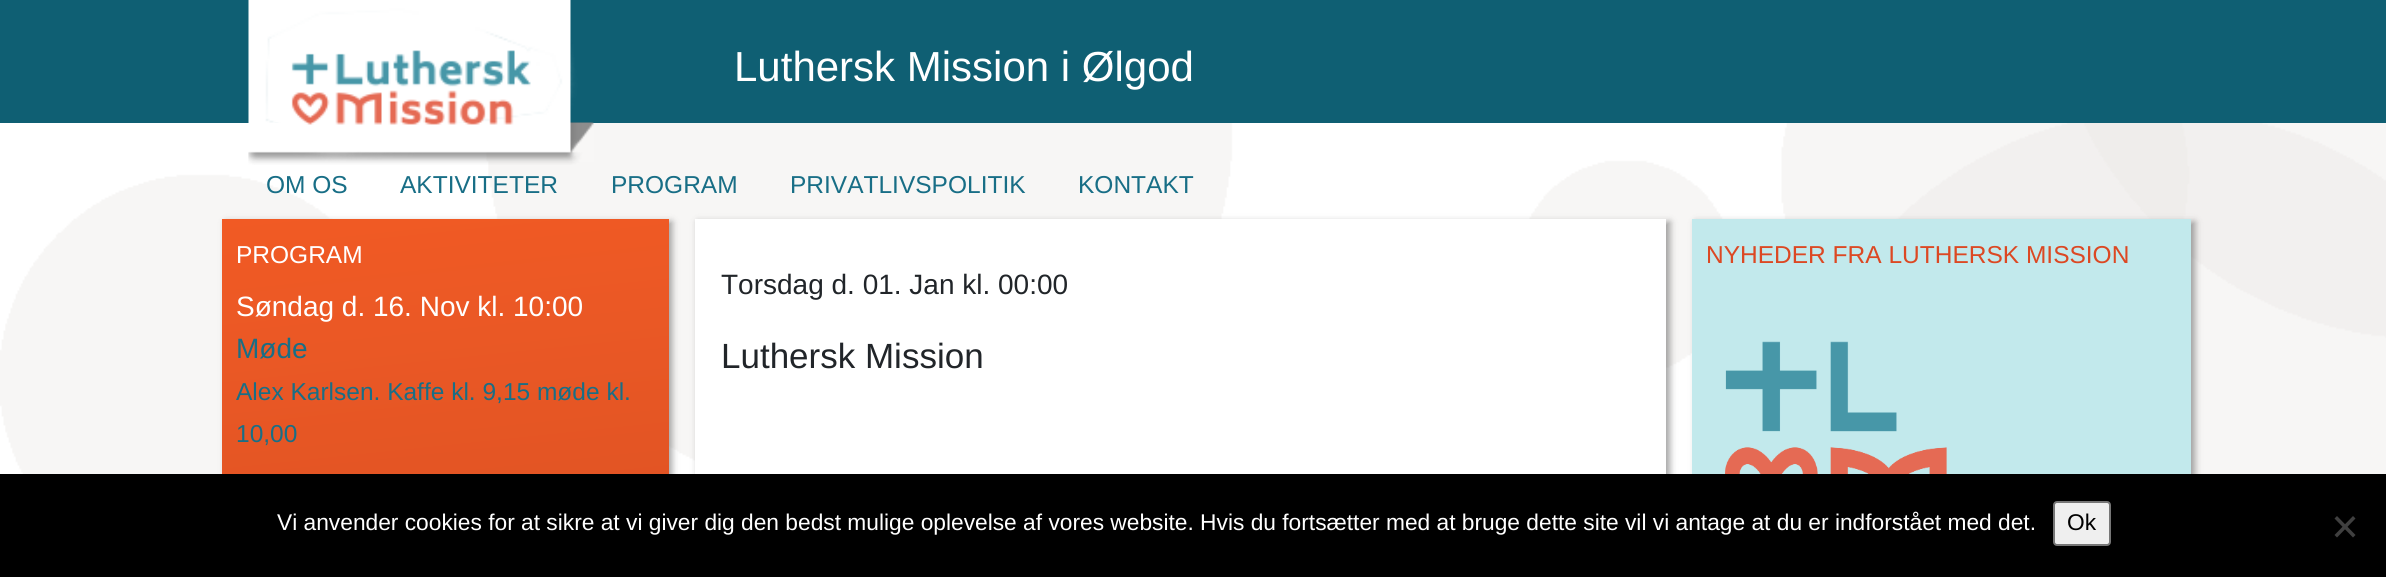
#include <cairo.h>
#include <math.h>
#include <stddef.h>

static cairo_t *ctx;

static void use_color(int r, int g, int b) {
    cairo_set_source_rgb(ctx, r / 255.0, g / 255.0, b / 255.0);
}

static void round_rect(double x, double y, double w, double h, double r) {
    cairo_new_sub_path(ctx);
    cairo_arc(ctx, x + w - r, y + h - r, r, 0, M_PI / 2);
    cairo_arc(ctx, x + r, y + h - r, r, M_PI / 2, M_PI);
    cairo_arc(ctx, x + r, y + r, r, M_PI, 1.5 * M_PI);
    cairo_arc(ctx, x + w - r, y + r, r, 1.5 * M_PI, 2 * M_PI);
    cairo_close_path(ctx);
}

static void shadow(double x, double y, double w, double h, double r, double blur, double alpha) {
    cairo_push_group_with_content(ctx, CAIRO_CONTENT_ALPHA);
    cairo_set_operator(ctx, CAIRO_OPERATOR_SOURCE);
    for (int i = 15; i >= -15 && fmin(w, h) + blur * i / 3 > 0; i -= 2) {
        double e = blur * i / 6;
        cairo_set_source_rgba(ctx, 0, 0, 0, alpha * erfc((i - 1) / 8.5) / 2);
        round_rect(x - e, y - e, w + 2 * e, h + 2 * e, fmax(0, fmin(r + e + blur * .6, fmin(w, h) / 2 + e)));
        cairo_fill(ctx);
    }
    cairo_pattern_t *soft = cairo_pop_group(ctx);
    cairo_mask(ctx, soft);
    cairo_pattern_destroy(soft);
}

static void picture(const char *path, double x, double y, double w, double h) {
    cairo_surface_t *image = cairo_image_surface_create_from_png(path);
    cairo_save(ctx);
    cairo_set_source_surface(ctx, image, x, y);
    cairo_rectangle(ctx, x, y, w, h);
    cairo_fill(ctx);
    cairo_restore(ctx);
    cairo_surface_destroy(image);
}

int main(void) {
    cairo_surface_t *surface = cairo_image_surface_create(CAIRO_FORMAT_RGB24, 2386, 577);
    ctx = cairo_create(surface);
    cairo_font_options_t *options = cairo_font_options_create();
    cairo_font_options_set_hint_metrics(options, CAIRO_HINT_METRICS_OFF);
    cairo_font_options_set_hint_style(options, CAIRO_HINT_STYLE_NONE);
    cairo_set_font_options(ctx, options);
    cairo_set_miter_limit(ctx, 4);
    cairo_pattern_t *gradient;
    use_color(255, 255, 255);
    cairo_paint(ctx);
    picture("img1.png", 0, 123, 2386, 351);
    use_color(15, 95, 115);
    cairo_rectangle(ctx, 0, 0, 2386, 123);
    cairo_fill(ctx);
    picture("img2.png", 248, 0, 346, 165);
    cairo_select_font_face(ctx, "Liberation Sans", CAIRO_FONT_SLANT_NORMAL, CAIRO_FONT_WEIGHT_NORMAL);
    cairo_set_font_size(ctx, 42);
    use_color(255, 255, 255);
    cairo_move_to(ctx, 734, 81);
    cairo_show_text(ctx, "Luthersk Mission i Ølgod");
    cairo_set_source_rgba(ctx, 1, 1, 1, 0.1);
    cairo_rectangle(ctx, 249, 123, 345, 39);
    cairo_fill(ctx);
    cairo_set_font_size(ctx, 24.5);
    use_color(24, 110, 134);
    cairo_move_to(ctx, 266, 193);
    cairo_show_text(ctx, "OM OS");
    cairo_move_to(ctx, 400, 193);
    cairo_show_text(ctx, "AKTIVITETER");
    cairo_move_to(ctx, 611, 193);
    cairo_show_text(ctx, "PROGRAM");
    cairo_move_to(ctx, 790, 193);
    cairo_show_text(ctx, "PRIVATLIVSPOLITIK");
    cairo_move_to(ctx, 1078, 193);
    cairo_show_text(ctx, "KONTAKT");
    use_color(50, 50, 50);
    shadow(226, 222, 446, 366, 0, 3.5, 0.45);
    gradient = cairo_pattern_create_linear(392, 201, 498, 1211);
    cairo_pattern_add_color_stop_rgba(gradient, 0, 0.945, 0.353, 0.141, 1);
    cairo_pattern_add_color_stop_rgba(gradient, 0.14, 0.918, 0.345, 0.145, 1);
    cairo_pattern_add_color_stop_rgba(gradient, 0.98, 0.753, 0.267, 0.118, 1);
    cairo_pattern_add_color_stop_rgba(gradient, 0.99, 0.737, 0.243, 0.122, 1);
    cairo_set_source(ctx, gradient);
    cairo_pattern_destroy(gradient);
    cairo_rectangle(ctx, 222, 219, 447, 255);
    cairo_fill(ctx);
    use_color(255, 255, 255);
    cairo_move_to(ctx, 236, 263);
    cairo_show_text(ctx, "PROGRAM");
    cairo_set_font_size(ctx, 28);
    cairo_move_to(ctx, 236, 316);
    cairo_show_text(ctx, "Søndag d. 16. Nov kl. 10:00");
    use_color(24, 110, 134);
    cairo_move_to(ctx, 236, 358);
    cairo_show_text(ctx, "Møde");
    cairo_set_font_size(ctx, 24.5);
    cairo_move_to(ctx, 236, 400);
    cairo_show_text(ctx, "Alex Karlsen. Kaffe kl. 9,15 møde kl.");
    cairo_move_to(ctx, 236, 442);
    cairo_show_text(ctx, "10,00");
    use_color(50, 50, 50);
    shadow(1696, 222, 499, 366, 0, 3.5, 0.45);
    use_color(194, 233, 236);
    cairo_rectangle(ctx, 1692, 219, 499, 255);
    cairo_fill(ctx);
    use_color(220, 72, 35);
    cairo_move_to(ctx, 1706, 263);
    cairo_show_text(ctx, "NYHEDER FRA LUTHERSK MISSION");
    picture("img3.png", 1725, 341, 222, 133);
    use_color(50, 50, 50);
    shadow(698, 222, 972, 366, 0, 3.5, 0.45);
    use_color(255, 255, 255);
    cairo_rectangle(ctx, 695, 219, 971, 255);
    cairo_fill(ctx);
    cairo_set_font_size(ctx, 28);
    use_color(33, 37, 41);
    cairo_move_to(ctx, 721, 294);
    cairo_show_text(ctx, "Torsdag d. 01. Jan kl. 00:00");
    cairo_set_font_size(ctx, 35);
    cairo_move_to(ctx, 721, 368);
    cairo_show_text(ctx, "Luthersk Mission");
    use_color(0, 0, 0);
    cairo_rectangle(ctx, 0, 474, 2386, 103);
    cairo_fill(ctx);
    cairo_set_font_size(ctx, 22.75);
    use_color(255, 255, 255);
    cairo_move_to(ctx, 277, 530);
    cairo_show_text(ctx, "Vi anvender cookies for at sikre at vi giver dig den bedst mulige oplevelse af vores website. Hvis du fortsætter med at bruge dette site vil vi antage at du er indforstået med det.");
    use_color(239, 239, 239);
    round_rect(2054, 502, 56, 43, 3);
    cairo_fill_preserve(ctx);
    use_color(118, 118, 118);
    cairo_stroke(ctx);
    use_color(0, 0, 0);
    cairo_move_to(ctx, 2067, 530);
    cairo_show_text(ctx, "Ok");
    use_color(64, 64, 64);
    cairo_new_path(ctx);
    cairo_move_to(ctx, 2353, 516);
    cairo_line_to(ctx, 2355.5, 518.5);
    cairo_line_to(ctx, 2337, 537.5);
    cairo_line_to(ctx, 2334.5, 535);
    cairo_close_path(ctx);
    cairo_fill(ctx);
    cairo_new_path(ctx);
    cairo_move_to(ctx, 2334.5, 518.5);
    cairo_line_to(ctx, 2337, 516);
    cairo_line_to(ctx, 2355.5, 535);
    cairo_line_to(ctx, 2353, 537.5);
    cairo_close_path(ctx);
    cairo_fill(ctx);
    cairo_surface_write_to_png(surface, "result.png");
    cairo_font_options_destroy(options);
    cairo_destroy(ctx);
    cairo_surface_destroy(surface);
    return 0;
}
